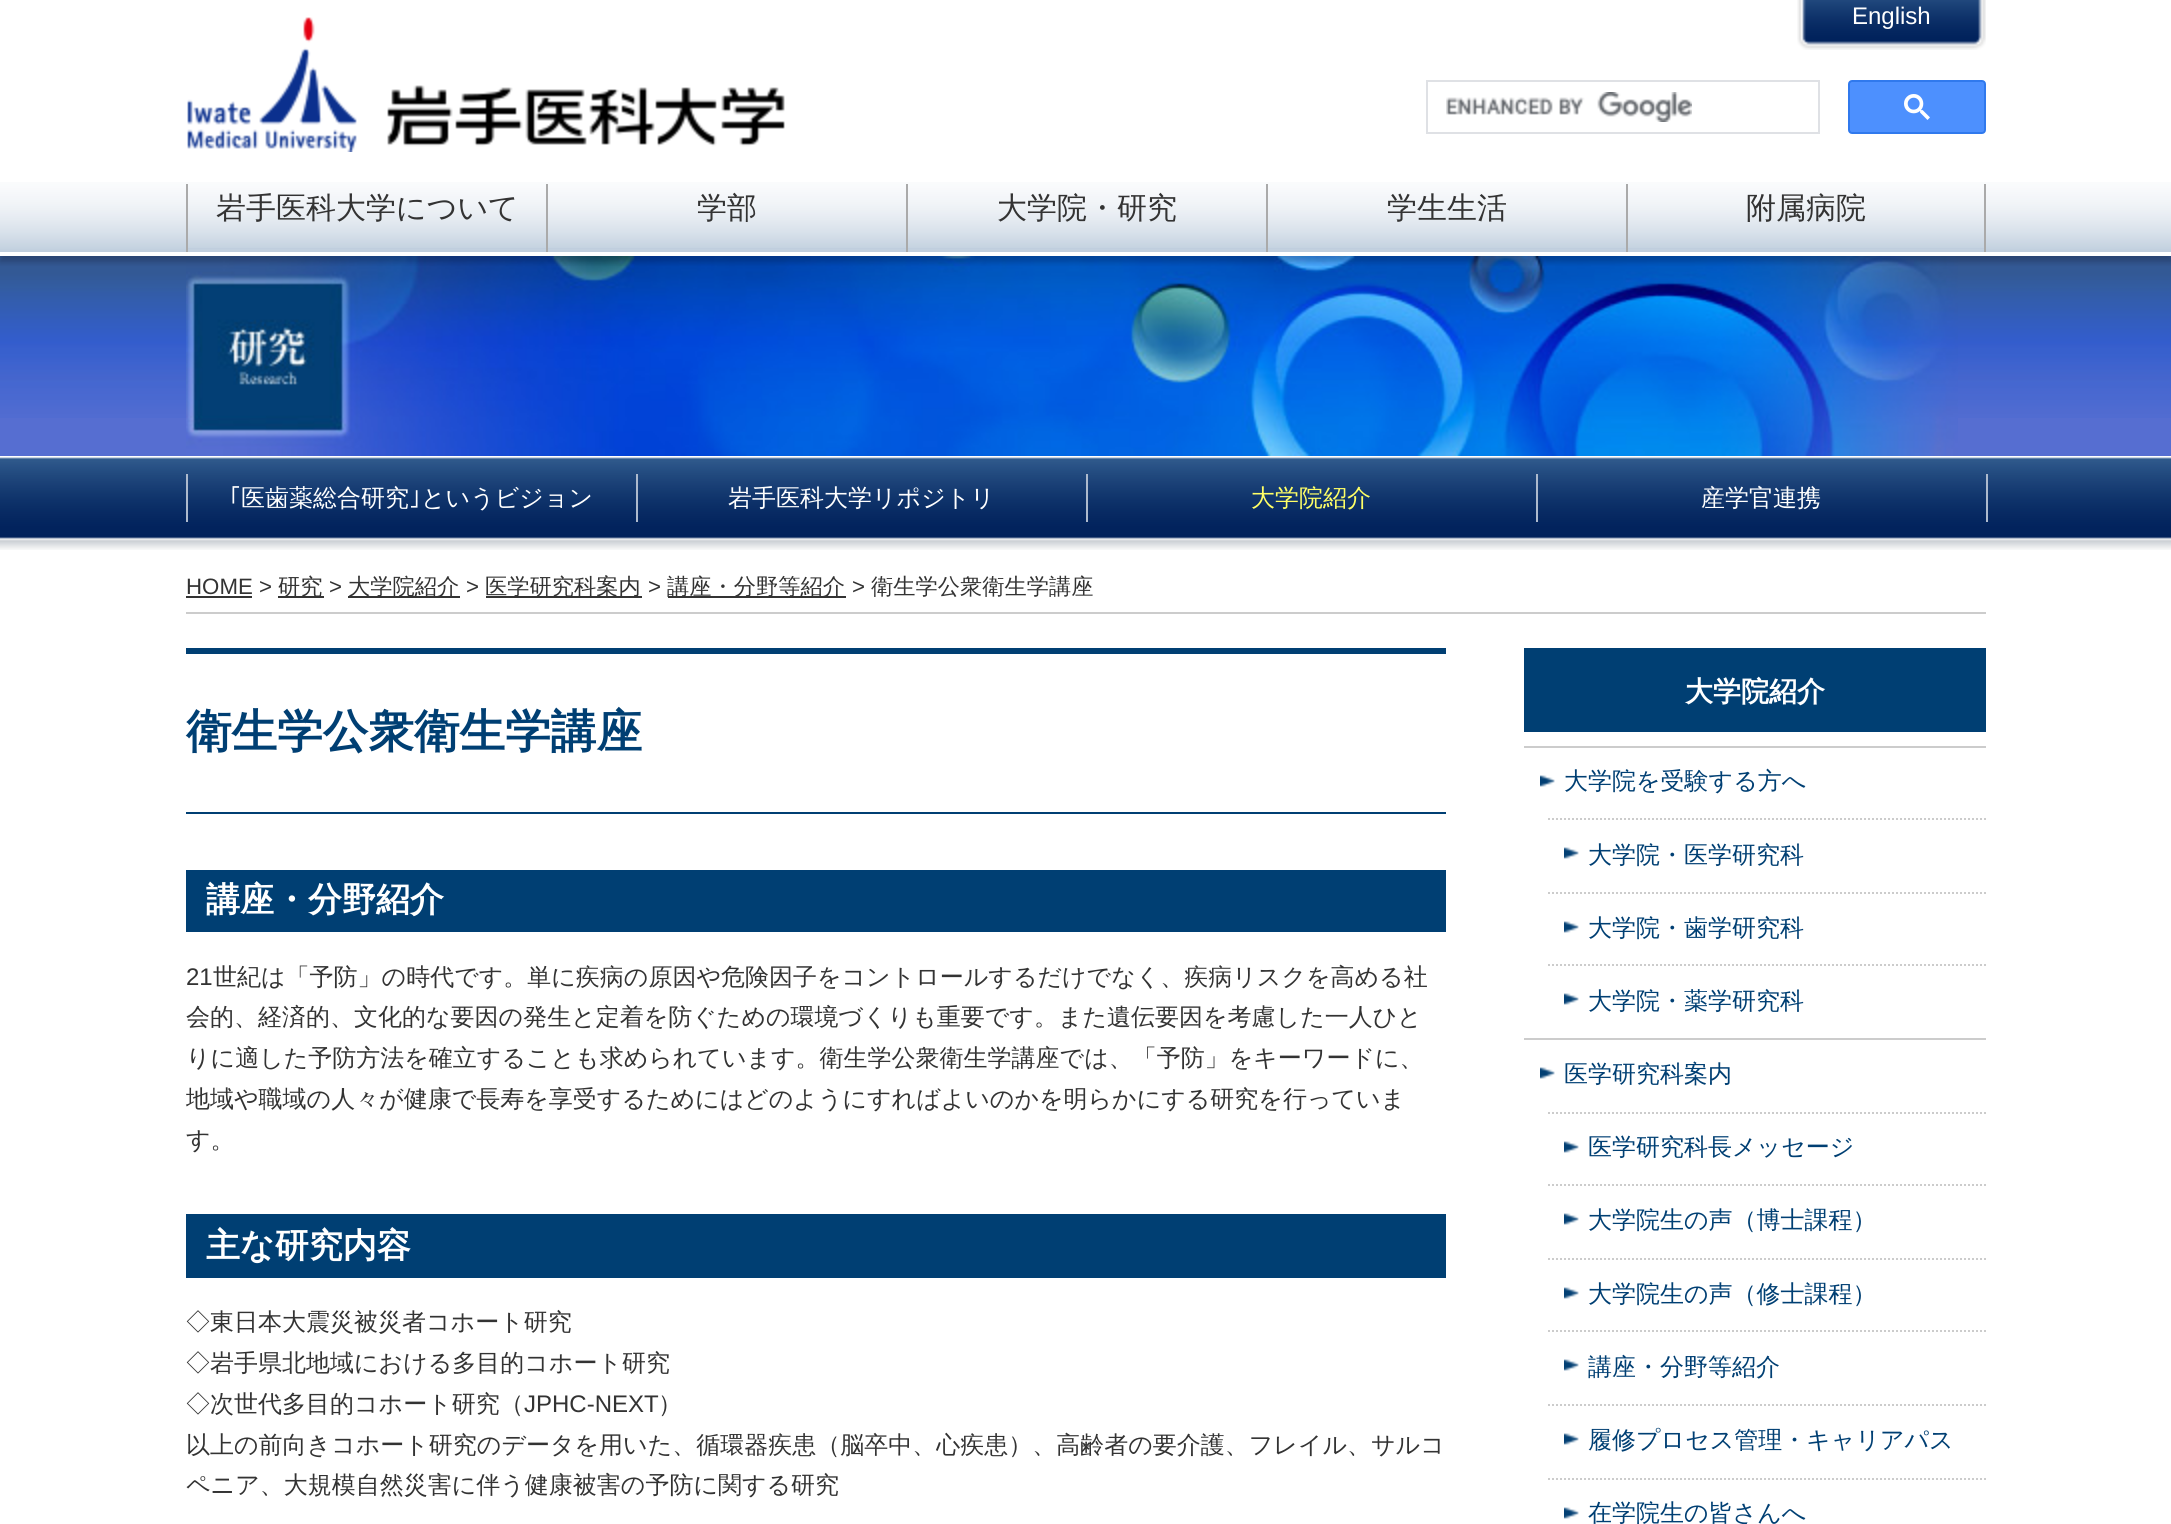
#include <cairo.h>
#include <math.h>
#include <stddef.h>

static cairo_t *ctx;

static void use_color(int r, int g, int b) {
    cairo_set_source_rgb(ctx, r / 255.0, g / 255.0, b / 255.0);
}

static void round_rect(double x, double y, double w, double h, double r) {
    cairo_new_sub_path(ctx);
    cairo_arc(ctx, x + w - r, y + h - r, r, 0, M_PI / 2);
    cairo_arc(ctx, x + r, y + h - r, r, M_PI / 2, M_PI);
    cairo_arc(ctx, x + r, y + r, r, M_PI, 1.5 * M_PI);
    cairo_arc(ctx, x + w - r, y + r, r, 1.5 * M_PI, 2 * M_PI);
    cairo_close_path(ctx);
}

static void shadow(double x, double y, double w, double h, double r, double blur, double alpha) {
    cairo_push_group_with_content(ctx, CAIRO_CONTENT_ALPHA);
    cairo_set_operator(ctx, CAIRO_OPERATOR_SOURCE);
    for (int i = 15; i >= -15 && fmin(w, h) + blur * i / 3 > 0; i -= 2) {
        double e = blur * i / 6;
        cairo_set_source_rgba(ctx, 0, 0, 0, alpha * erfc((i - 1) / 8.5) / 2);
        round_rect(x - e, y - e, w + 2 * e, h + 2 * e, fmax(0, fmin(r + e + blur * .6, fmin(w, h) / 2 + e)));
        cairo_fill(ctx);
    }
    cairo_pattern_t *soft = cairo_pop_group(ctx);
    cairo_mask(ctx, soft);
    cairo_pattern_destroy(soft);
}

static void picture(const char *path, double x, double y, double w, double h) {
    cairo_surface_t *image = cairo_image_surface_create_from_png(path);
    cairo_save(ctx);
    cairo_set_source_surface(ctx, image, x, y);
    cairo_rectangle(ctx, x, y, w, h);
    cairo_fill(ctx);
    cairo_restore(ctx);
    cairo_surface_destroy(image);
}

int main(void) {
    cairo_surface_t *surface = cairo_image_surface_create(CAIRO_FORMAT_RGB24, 2171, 1524);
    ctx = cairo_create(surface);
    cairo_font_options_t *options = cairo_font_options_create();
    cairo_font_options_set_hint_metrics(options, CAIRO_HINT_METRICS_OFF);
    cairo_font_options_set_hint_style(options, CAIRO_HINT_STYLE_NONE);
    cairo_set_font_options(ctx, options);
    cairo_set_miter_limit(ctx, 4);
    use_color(255, 255, 255);
    cairo_paint(ctx);
    picture("img6.png", 0, 256, 2171, 162);
    use_color(86, 110, 209);
    cairo_rectangle(ctx, 0, 418, 2171, 38);
    cairo_fill(ctx);
    picture("img7.png", 186, 256, 1772, 200);
    cairo_save(ctx);
    cairo_rectangle(ctx, 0, 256, 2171, 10);
    cairo_clip(ctx);
    use_color(0, 0, 0);
    shadow(0, 6, 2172, 256, 0, 3, 0.2);
    cairo_restore(ctx);
    picture("img1.png", 0, 182, 2171, 70);
    picture("img2.png", 187, 17, 598, 135);
    picture("img3.png", 1797, 0, 189, 50);
    cairo_select_font_face(ctx, "Liberation Sans", CAIRO_FONT_SLANT_NORMAL, CAIRO_FONT_WEIGHT_NORMAL);
    cairo_set_font_size(ctx, 24);
    use_color(255, 255, 255);
    cairo_move_to(ctx, 1852, 24);
    cairo_show_text(ctx, "English");
    cairo_rectangle(ctx, 1427, 81, 392, 52);
    use_color(223, 225, 229);
    cairo_stroke(ctx);
    picture("img4.png", 1446, 92, 246, 30);
    use_color(77, 144, 254);
    round_rect(1849, 81, 136, 52, 3);
    cairo_fill_preserve(ctx);
    use_color(48, 121, 237);
    cairo_stroke(ctx);
    picture("img5.png", 1904, 94, 26, 26);
    use_color(170, 170, 170);
    cairo_rectangle(ctx, 186, 184, 2, 68);
    cairo_fill(ctx);
    use_color(192, 206, 222);
    cairo_rectangle(ctx, 188, 248, 358, 1);
    cairo_fill(ctx);
    cairo_select_font_face(ctx, "WenQuanYi Zen Hei Medium", CAIRO_FONT_SLANT_NORMAL, CAIRO_FONT_WEIGHT_NORMAL);
    cairo_set_font_size(ctx, 30);
    use_color(51, 51, 51);
    cairo_move_to(ctx, 216, 218);
    cairo_show_text(ctx, "岩手医科大学について");
    use_color(170, 170, 170);
    cairo_rectangle(ctx, 546, 184, 2, 68);
    cairo_fill(ctx);
    use_color(192, 206, 222);
    cairo_rectangle(ctx, 548, 248, 358, 1);
    cairo_fill(ctx);
    use_color(51, 51, 51);
    cairo_move_to(ctx, 697, 218);
    cairo_show_text(ctx, "学部");
    use_color(170, 170, 170);
    cairo_rectangle(ctx, 906, 184, 2, 68);
    cairo_fill(ctx);
    use_color(192, 206, 222);
    cairo_rectangle(ctx, 908, 248, 358, 1);
    cairo_fill(ctx);
    use_color(51, 51, 51);
    cairo_move_to(ctx, 997, 218);
    cairo_show_text(ctx, "大学院・研究");
    use_color(170, 170, 170);
    cairo_rectangle(ctx, 1266, 184, 2, 68);
    cairo_fill(ctx);
    use_color(192, 206, 222);
    cairo_rectangle(ctx, 1268, 248, 358, 1);
    cairo_fill(ctx);
    use_color(51, 51, 51);
    cairo_move_to(ctx, 1387, 218);
    cairo_show_text(ctx, "学生生活");
    use_color(170, 170, 170);
    cairo_rectangle(ctx, 1984, 184, 2, 68);
    cairo_fill(ctx);
    cairo_rectangle(ctx, 1626, 184, 2, 68);
    cairo_fill(ctx);
    use_color(192, 206, 222);
    cairo_rectangle(ctx, 1628, 248, 356, 1);
    cairo_fill(ctx);
    use_color(51, 51, 51);
    cairo_move_to(ctx, 1746, 218);
    cairo_show_text(ctx, "附属病院");
    picture("img8.png", 0, 457, 2171, 93);
    use_color(173, 186, 205);
    cairo_rectangle(ctx, 1986, 474, 2, 48);
    cairo_fill(ctx);
    cairo_rectangle(ctx, 186, 474, 2, 48);
    cairo_fill(ctx);
    cairo_select_font_face(ctx, "IPAPGothic", CAIRO_FONT_SLANT_NORMAL, CAIRO_FONT_WEIGHT_NORMAL);
    cairo_set_font_size(ctx, 24);
    use_color(255, 255, 255);
    cairo_move_to(ctx, 229, 506);
    cairo_show_text(ctx, "｢");
    cairo_select_font_face(ctx, "WenQuanYi Zen Hei Medium", CAIRO_FONT_SLANT_NORMAL, CAIRO_FONT_WEIGHT_NORMAL);
    cairo_move_to(ctx, 241, 506);
    cairo_show_text(ctx, "医歯薬総合研究");
    cairo_select_font_face(ctx, "IPAPGothic", CAIRO_FONT_SLANT_NORMAL, CAIRO_FONT_WEIGHT_NORMAL);
    cairo_move_to(ctx, 409, 506);
    cairo_show_text(ctx, "｣");
    cairo_select_font_face(ctx, "WenQuanYi Zen Hei Medium", CAIRO_FONT_SLANT_NORMAL, CAIRO_FONT_WEIGHT_NORMAL);
    cairo_move_to(ctx, 421, 506);
    cairo_show_text(ctx, "というビジョン");
    use_color(173, 186, 205);
    cairo_rectangle(ctx, 636, 474, 2, 48);
    cairo_fill(ctx);
    use_color(255, 255, 255);
    cairo_move_to(ctx, 728, 506);
    cairo_show_text(ctx, "岩手医科大学リポジトリ");
    use_color(173, 186, 205);
    cairo_rectangle(ctx, 1086, 474, 2, 48);
    cairo_fill(ctx);
    use_color(255, 255, 102);
    cairo_move_to(ctx, 1251, 506);
    cairo_show_text(ctx, "大学院紹介");
    use_color(173, 186, 205);
    cairo_rectangle(ctx, 1536, 474, 2, 48);
    cairo_fill(ctx);
    use_color(255, 255, 255);
    cairo_move_to(ctx, 1701, 506);
    cairo_show_text(ctx, "産学官連携");
    use_color(204, 204, 204);
    cairo_rectangle(ctx, 186, 612, 1800, 2);
    cairo_fill(ctx);
    cairo_select_font_face(ctx, "Liberation Sans", CAIRO_FONT_SLANT_NORMAL, CAIRO_FONT_WEIGHT_NORMAL);
    cairo_set_font_size(ctx, 22.25);
    use_color(51, 51, 51);
    cairo_move_to(ctx, 186, 594);
    cairo_show_text(ctx, "HOME >");
    cairo_rectangle(ctx, 186, 596, 66, 2);
    cairo_fill(ctx);
    cairo_rectangle(ctx, 278, 596, 46, 2);
    cairo_fill(ctx);
    cairo_select_font_face(ctx, "WenQuanYi Zen Hei Medium", CAIRO_FONT_SLANT_NORMAL, CAIRO_FONT_WEIGHT_NORMAL);
    cairo_move_to(ctx, 278, 594);
    cairo_show_text(ctx, "研究");
    cairo_select_font_face(ctx, "Liberation Sans", CAIRO_FONT_SLANT_NORMAL, CAIRO_FONT_WEIGHT_NORMAL);
    cairo_move_to(ctx, 329, 594);
    cairo_show_text(ctx, ">");
    cairo_rectangle(ctx, 348, 596, 112, 2);
    cairo_fill(ctx);
    cairo_select_font_face(ctx, "WenQuanYi Zen Hei Medium", CAIRO_FONT_SLANT_NORMAL, CAIRO_FONT_WEIGHT_NORMAL);
    cairo_move_to(ctx, 348, 594);
    cairo_show_text(ctx, "大学院紹介");
    cairo_select_font_face(ctx, "Liberation Sans", CAIRO_FONT_SLANT_NORMAL, CAIRO_FONT_WEIGHT_NORMAL);
    cairo_move_to(ctx, 466, 594);
    cairo_show_text(ctx, ">");
    cairo_rectangle(ctx, 486, 596, 156, 2);
    cairo_fill(ctx);
    cairo_select_font_face(ctx, "WenQuanYi Zen Hei Medium", CAIRO_FONT_SLANT_NORMAL, CAIRO_FONT_WEIGHT_NORMAL);
    cairo_move_to(ctx, 485, 594);
    cairo_show_text(ctx, "医学研究科案内");
    cairo_select_font_face(ctx, "Liberation Sans", CAIRO_FONT_SLANT_NORMAL, CAIRO_FONT_WEIGHT_NORMAL);
    cairo_move_to(ctx, 648, 594);
    cairo_show_text(ctx, ">");
    cairo_rectangle(ctx, 668, 596, 178, 2);
    cairo_fill(ctx);
    cairo_select_font_face(ctx, "WenQuanYi Zen Hei Medium", CAIRO_FONT_SLANT_NORMAL, CAIRO_FONT_WEIGHT_NORMAL);
    cairo_move_to(ctx, 667, 594);
    cairo_show_text(ctx, "講座・分野等紹介");
    cairo_select_font_face(ctx, "Liberation Sans", CAIRO_FONT_SLANT_NORMAL, CAIRO_FONT_WEIGHT_NORMAL);
    cairo_move_to(ctx, 852, 594);
    cairo_show_text(ctx, ">");
    cairo_select_font_face(ctx, "WenQuanYi Zen Hei Medium", CAIRO_FONT_SLANT_NORMAL, CAIRO_FONT_WEIGHT_NORMAL);
    cairo_move_to(ctx, 871, 594);
    cairo_show_text(ctx, "衛生学公衆衛生学講座");
    use_color(0, 63, 115);
    cairo_rectangle(ctx, 186, 648, 1260, 6);
    cairo_fill(ctx);
    cairo_rectangle(ctx, 186, 812, 1260, 2);
    cairo_fill(ctx);
    cairo_select_font_face(ctx, "WenQuanYi Zen Hei", CAIRO_FONT_SLANT_NORMAL, CAIRO_FONT_WEIGHT_BOLD);
    cairo_set_font_size(ctx, 45.6);
    cairo_move_to(ctx, 186, 747);
    cairo_show_text(ctx, "衛生学公衆衛生学講座");
    cairo_rectangle(ctx, 186, 870, 1260, 62);
    cairo_fill(ctx);
    cairo_set_font_size(ctx, 34);
    use_color(255, 255, 255);
    cairo_move_to(ctx, 206, 911);
    cairo_show_text(ctx, "講座・分野紹介");
    cairo_select_font_face(ctx, "Liberation Sans", CAIRO_FONT_SLANT_NORMAL, CAIRO_FONT_WEIGHT_NORMAL);
    cairo_set_font_size(ctx, 24);
    use_color(51, 51, 51);
    cairo_move_to(ctx, 186, 985);
    cairo_show_text(ctx, "21");
    cairo_select_font_face(ctx, "WenQuanYi Zen Hei Medium", CAIRO_FONT_SLANT_NORMAL, CAIRO_FONT_WEIGHT_NORMAL);
    cairo_move_to(ctx, 213, 985);
    cairo_show_text(ctx, "世紀は「予防」の時代です。単に疾病の原因や危険因子をコントロールするだけでなく、疾病リスクを高める社");
    cairo_move_to(ctx, 186, 1025);
    cairo_show_text(ctx, "会的、経済的、文化的な要因の発生と定着を防ぐための環境づくりも重要です。また遺伝要因を考慮した一人ひと");
    cairo_move_to(ctx, 186, 1066);
    cairo_show_text(ctx, "りに適した予防方法を確立することも求められています。衛生学公衆衛生学講座では、「予防」をキーワードに、");
    cairo_move_to(ctx, 186, 1107);
    cairo_show_text(ctx, "地域や職域の人々が健康で長寿を享受するためにはどのようにすればよいのかを明らかにする研究を行っていま");
    cairo_move_to(ctx, 186, 1148);
    cairo_show_text(ctx, "す。");
    use_color(0, 63, 115);
    cairo_rectangle(ctx, 186, 1214, 1260, 64);
    cairo_fill(ctx);
    cairo_select_font_face(ctx, "WenQuanYi Zen Hei", CAIRO_FONT_SLANT_NORMAL, CAIRO_FONT_WEIGHT_BOLD);
    cairo_set_font_size(ctx, 34);
    use_color(255, 255, 255);
    cairo_move_to(ctx, 206, 1257);
    cairo_show_text(ctx, "主な研究内容");
    cairo_select_font_face(ctx, "WenQuanYi Zen Hei Medium", CAIRO_FONT_SLANT_NORMAL, CAIRO_FONT_WEIGHT_NORMAL);
    cairo_set_font_size(ctx, 24);
    use_color(51, 51, 51);
    cairo_move_to(ctx, 186, 1330);
    cairo_show_text(ctx, "◇東日本大震災被災者コホート研究");
    cairo_move_to(ctx, 186, 1371);
    cairo_show_text(ctx, "◇岩手県北地域における多目的コホート研究");
    cairo_move_to(ctx, 186, 1412);
    cairo_show_text(ctx, "◇次世代多目的コホート研究（");
    cairo_select_font_face(ctx, "Liberation Sans", CAIRO_FONT_SLANT_NORMAL, CAIRO_FONT_WEIGHT_NORMAL);
    cairo_move_to(ctx, 524, 1412);
    cairo_show_text(ctx, "JPHC-NEXT");
    cairo_select_font_face(ctx, "WenQuanYi Zen Hei Medium", CAIRO_FONT_SLANT_NORMAL, CAIRO_FONT_WEIGHT_NORMAL);
    cairo_move_to(ctx, 658, 1412);
    cairo_show_text(ctx, "）");
    cairo_move_to(ctx, 186, 1453);
    cairo_show_text(ctx, "以上の前向きコホート研究のデータを用いた、循環器疾患（脳卒中、心疾患）、高齢者の要介護、フレイル、サルコ");
    cairo_move_to(ctx, 186, 1493);
    cairo_show_text(ctx, "ペニア、大規模自然災害に伴う健康被害の予防に関する研究");
    use_color(0, 63, 115);
    cairo_rectangle(ctx, 1524, 648, 462, 84);
    cairo_fill(ctx);
    cairo_select_font_face(ctx, "WenQuanYi Zen Hei", CAIRO_FONT_SLANT_NORMAL, CAIRO_FONT_WEIGHT_BOLD);
    cairo_set_font_size(ctx, 28);
    use_color(255, 255, 255);
    cairo_move_to(ctx, 1685, 701);
    cairo_show_text(ctx, "大学院紹介");
    use_color(204, 204, 204);
    cairo_rectangle(ctx, 1524, 746, 462, 2);
    cairo_fill(ctx);
    picture("img9.png", 1540, 775, 15, 12);
    cairo_select_font_face(ctx, "WenQuanYi Zen Hei Medium", CAIRO_FONT_SLANT_NORMAL, CAIRO_FONT_WEIGHT_NORMAL);
    cairo_set_font_size(ctx, 24);
    use_color(0, 63, 115);
    cairo_move_to(ctx, 1564, 789);
    cairo_show_text(ctx, "大学院を受験する方へ");
    cairo_new_path(ctx);
    cairo_move_to(ctx, 1548, 819);
    cairo_line_to(ctx, 1986, 819);
    use_color(204, 204, 204);
    cairo_set_dash(ctx, (double[]){2, 2}, 2, 0);
    cairo_stroke(ctx);
    picture("img9.png", 1564, 847, 15, 12);
    use_color(0, 63, 115);
    cairo_move_to(ctx, 1588, 863);
    cairo_show_text(ctx, "大学院・医学研究科");
    cairo_new_path(ctx);
    cairo_move_to(ctx, 1548, 893);
    cairo_line_to(ctx, 1986, 893);
    use_color(204, 204, 204);
    cairo_stroke(ctx);
    picture("img9.png", 1564, 921, 15, 12);
    use_color(0, 63, 115);
    cairo_move_to(ctx, 1588, 936);
    cairo_show_text(ctx, "大学院・歯学研究科");
    cairo_new_path(ctx);
    cairo_move_to(ctx, 1548, 965);
    cairo_line_to(ctx, 1986, 965);
    use_color(204, 204, 204);
    cairo_stroke(ctx);
    picture("img9.png", 1564, 993, 15, 12);
    use_color(0, 63, 115);
    cairo_move_to(ctx, 1588, 1009);
    cairo_show_text(ctx, "大学院・薬学研究科");
    use_color(204, 204, 204);
    cairo_rectangle(ctx, 1524, 1038, 462, 2);
    cairo_fill(ctx);
    picture("img9.png", 1540, 1067, 15, 12);
    use_color(0, 63, 115);
    cairo_move_to(ctx, 1564, 1082);
    cairo_show_text(ctx, "医学研究科案内");
    cairo_new_path(ctx);
    cairo_move_to(ctx, 1548, 1113);
    cairo_line_to(ctx, 1986, 1113);
    use_color(204, 204, 204);
    cairo_stroke(ctx);
    picture("img9.png", 1564, 1141, 15, 12);
    use_color(0, 63, 115);
    cairo_move_to(ctx, 1588, 1155);
    cairo_show_text(ctx, "医学研究科長メッセージ");
    cairo_new_path(ctx);
    cairo_move_to(ctx, 1548, 1185);
    cairo_line_to(ctx, 1986, 1185);
    use_color(204, 204, 204);
    cairo_stroke(ctx);
    picture("img9.png", 1564, 1213, 15, 12);
    use_color(0, 63, 115);
    cairo_move_to(ctx, 1588, 1228);
    cairo_show_text(ctx, "大学院生の声（博士課程）");
    cairo_new_path(ctx);
    cairo_move_to(ctx, 1548, 1259);
    cairo_line_to(ctx, 1986, 1259);
    use_color(204, 204, 204);
    cairo_stroke(ctx);
    picture("img9.png", 1564, 1287, 15, 12);
    use_color(0, 63, 115);
    cairo_move_to(ctx, 1588, 1302);
    cairo_show_text(ctx, "大学院生の声（修士課程）");
    cairo_new_path(ctx);
    cairo_move_to(ctx, 1548, 1331);
    cairo_line_to(ctx, 1986, 1331);
    use_color(204, 204, 204);
    cairo_stroke(ctx);
    picture("img9.png", 1564, 1359, 15, 12);
    use_color(0, 63, 115);
    cairo_move_to(ctx, 1588, 1375);
    cairo_show_text(ctx, "講座・分野等紹介");
    cairo_new_path(ctx);
    cairo_move_to(ctx, 1548, 1405);
    cairo_line_to(ctx, 1986, 1405);
    use_color(204, 204, 204);
    cairo_stroke(ctx);
    picture("img9.png", 1564, 1433, 15, 12);
    use_color(0, 63, 115);
    cairo_move_to(ctx, 1588, 1448);
    cairo_show_text(ctx, "履修プロセス管理・キャリアパス");
    cairo_new_path(ctx);
    cairo_move_to(ctx, 1548, 1479);
    cairo_line_to(ctx, 1986, 1479);
    use_color(204, 204, 204);
    cairo_stroke(ctx);
    picture("img9.png", 1564, 1507, 15, 12);
    use_color(0, 63, 115);
    cairo_move_to(ctx, 1588, 1521);
    cairo_show_text(ctx, "在学院生の皆さんへ");
    cairo_surface_write_to_png(surface, "result.png");
    cairo_font_options_destroy(options);
    cairo_destroy(ctx);
    cairo_surface_destroy(surface);
    return 0;
}
